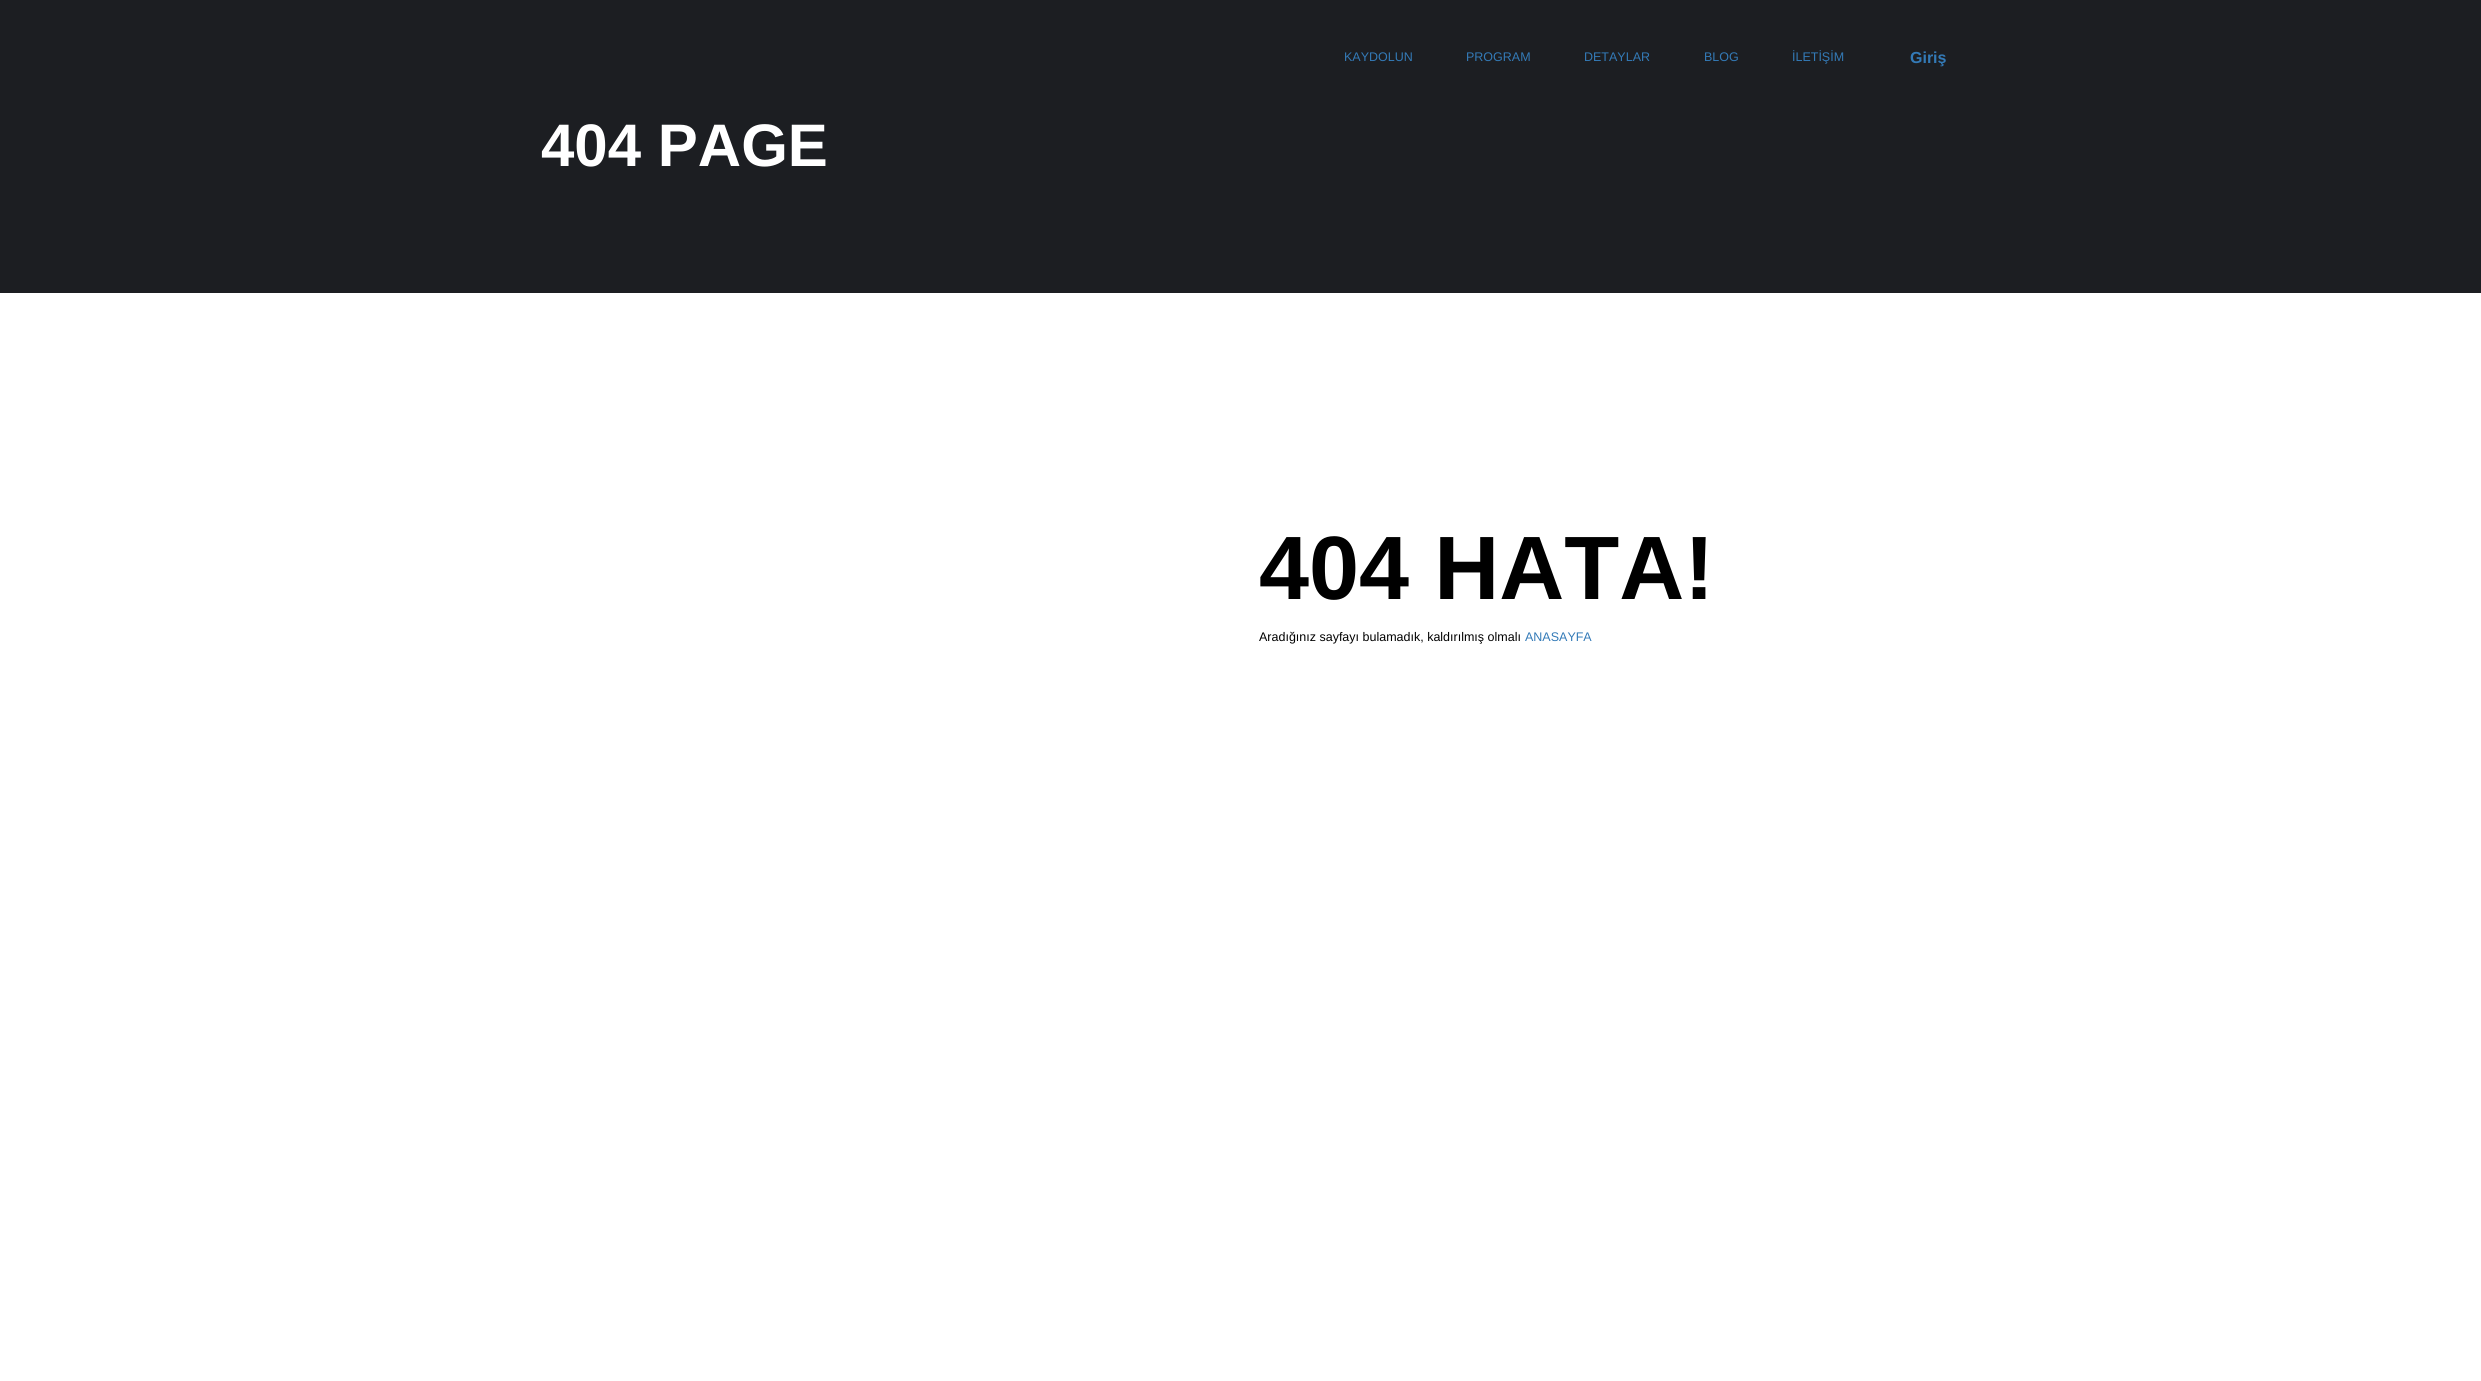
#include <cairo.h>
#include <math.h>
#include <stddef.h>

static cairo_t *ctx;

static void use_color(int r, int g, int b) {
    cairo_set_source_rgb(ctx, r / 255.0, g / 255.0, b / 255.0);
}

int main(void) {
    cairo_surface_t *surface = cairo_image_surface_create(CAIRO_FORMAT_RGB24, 2481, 1381);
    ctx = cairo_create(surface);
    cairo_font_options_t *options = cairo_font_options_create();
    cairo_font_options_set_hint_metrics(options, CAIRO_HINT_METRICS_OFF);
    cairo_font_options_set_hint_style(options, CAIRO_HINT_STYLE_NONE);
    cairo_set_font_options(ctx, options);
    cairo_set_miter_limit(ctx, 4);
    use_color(255, 255, 255);
    cairo_paint(ctx);
    use_color(28, 30, 34);
    cairo_rectangle(ctx, 0, 0, 2481, 293);
    cairo_fill(ctx);
    cairo_select_font_face(ctx, "Liberation Sans", CAIRO_FONT_SLANT_NORMAL, CAIRO_FONT_WEIGHT_NORMAL);
    cairo_set_font_size(ctx, 12.5);
    use_color(51, 122, 183);
    cairo_move_to(ctx, 1344, 61);
    cairo_show_text(ctx, "KAYDOLUN");
    cairo_move_to(ctx, 1466, 61);
    cairo_show_text(ctx, "PROGRAM");
    cairo_move_to(ctx, 1584, 61);
    cairo_show_text(ctx, "DETAYLAR");
    cairo_move_to(ctx, 1704, 61);
    cairo_show_text(ctx, "BLOG");
    cairo_move_to(ctx, 1792, 61);
    cairo_show_text(ctx, "İLETİŞİM");
    cairo_select_font_face(ctx, "Liberation Sans", CAIRO_FONT_SLANT_NORMAL, CAIRO_FONT_WEIGHT_BOLD);
    cairo_set_font_size(ctx, 16);
    cairo_move_to(ctx, 1910, 63);
    cairo_show_text(ctx, "Giriş");
    cairo_set_font_size(ctx, 60);
    use_color(255, 255, 255);
    cairo_move_to(ctx, 541, 166);
    cairo_show_text(ctx, "404 PAGE");
    cairo_set_font_size(ctx, 90);
    use_color(0, 0, 0);
    cairo_move_to(ctx, 1259, 599);
    cairo_show_text(ctx, "404 HATA!");
    cairo_select_font_face(ctx, "Liberation Sans", CAIRO_FONT_SLANT_NORMAL, CAIRO_FONT_WEIGHT_NORMAL);
    cairo_set_font_size(ctx, 12.5);
    cairo_move_to(ctx, 1259, 641);
    cairo_show_text(ctx, "Aradığınız sayfayı bulamadık, kaldırılmış olmalı");
    use_color(51, 122, 183);
    cairo_move_to(ctx, 1525, 641);
    cairo_show_text(ctx, "ANASAYFA");
    cairo_surface_write_to_png(surface, "result.png");
    cairo_font_options_destroy(options);
    cairo_destroy(ctx);
    cairo_surface_destroy(surface);
    return 0;
}
